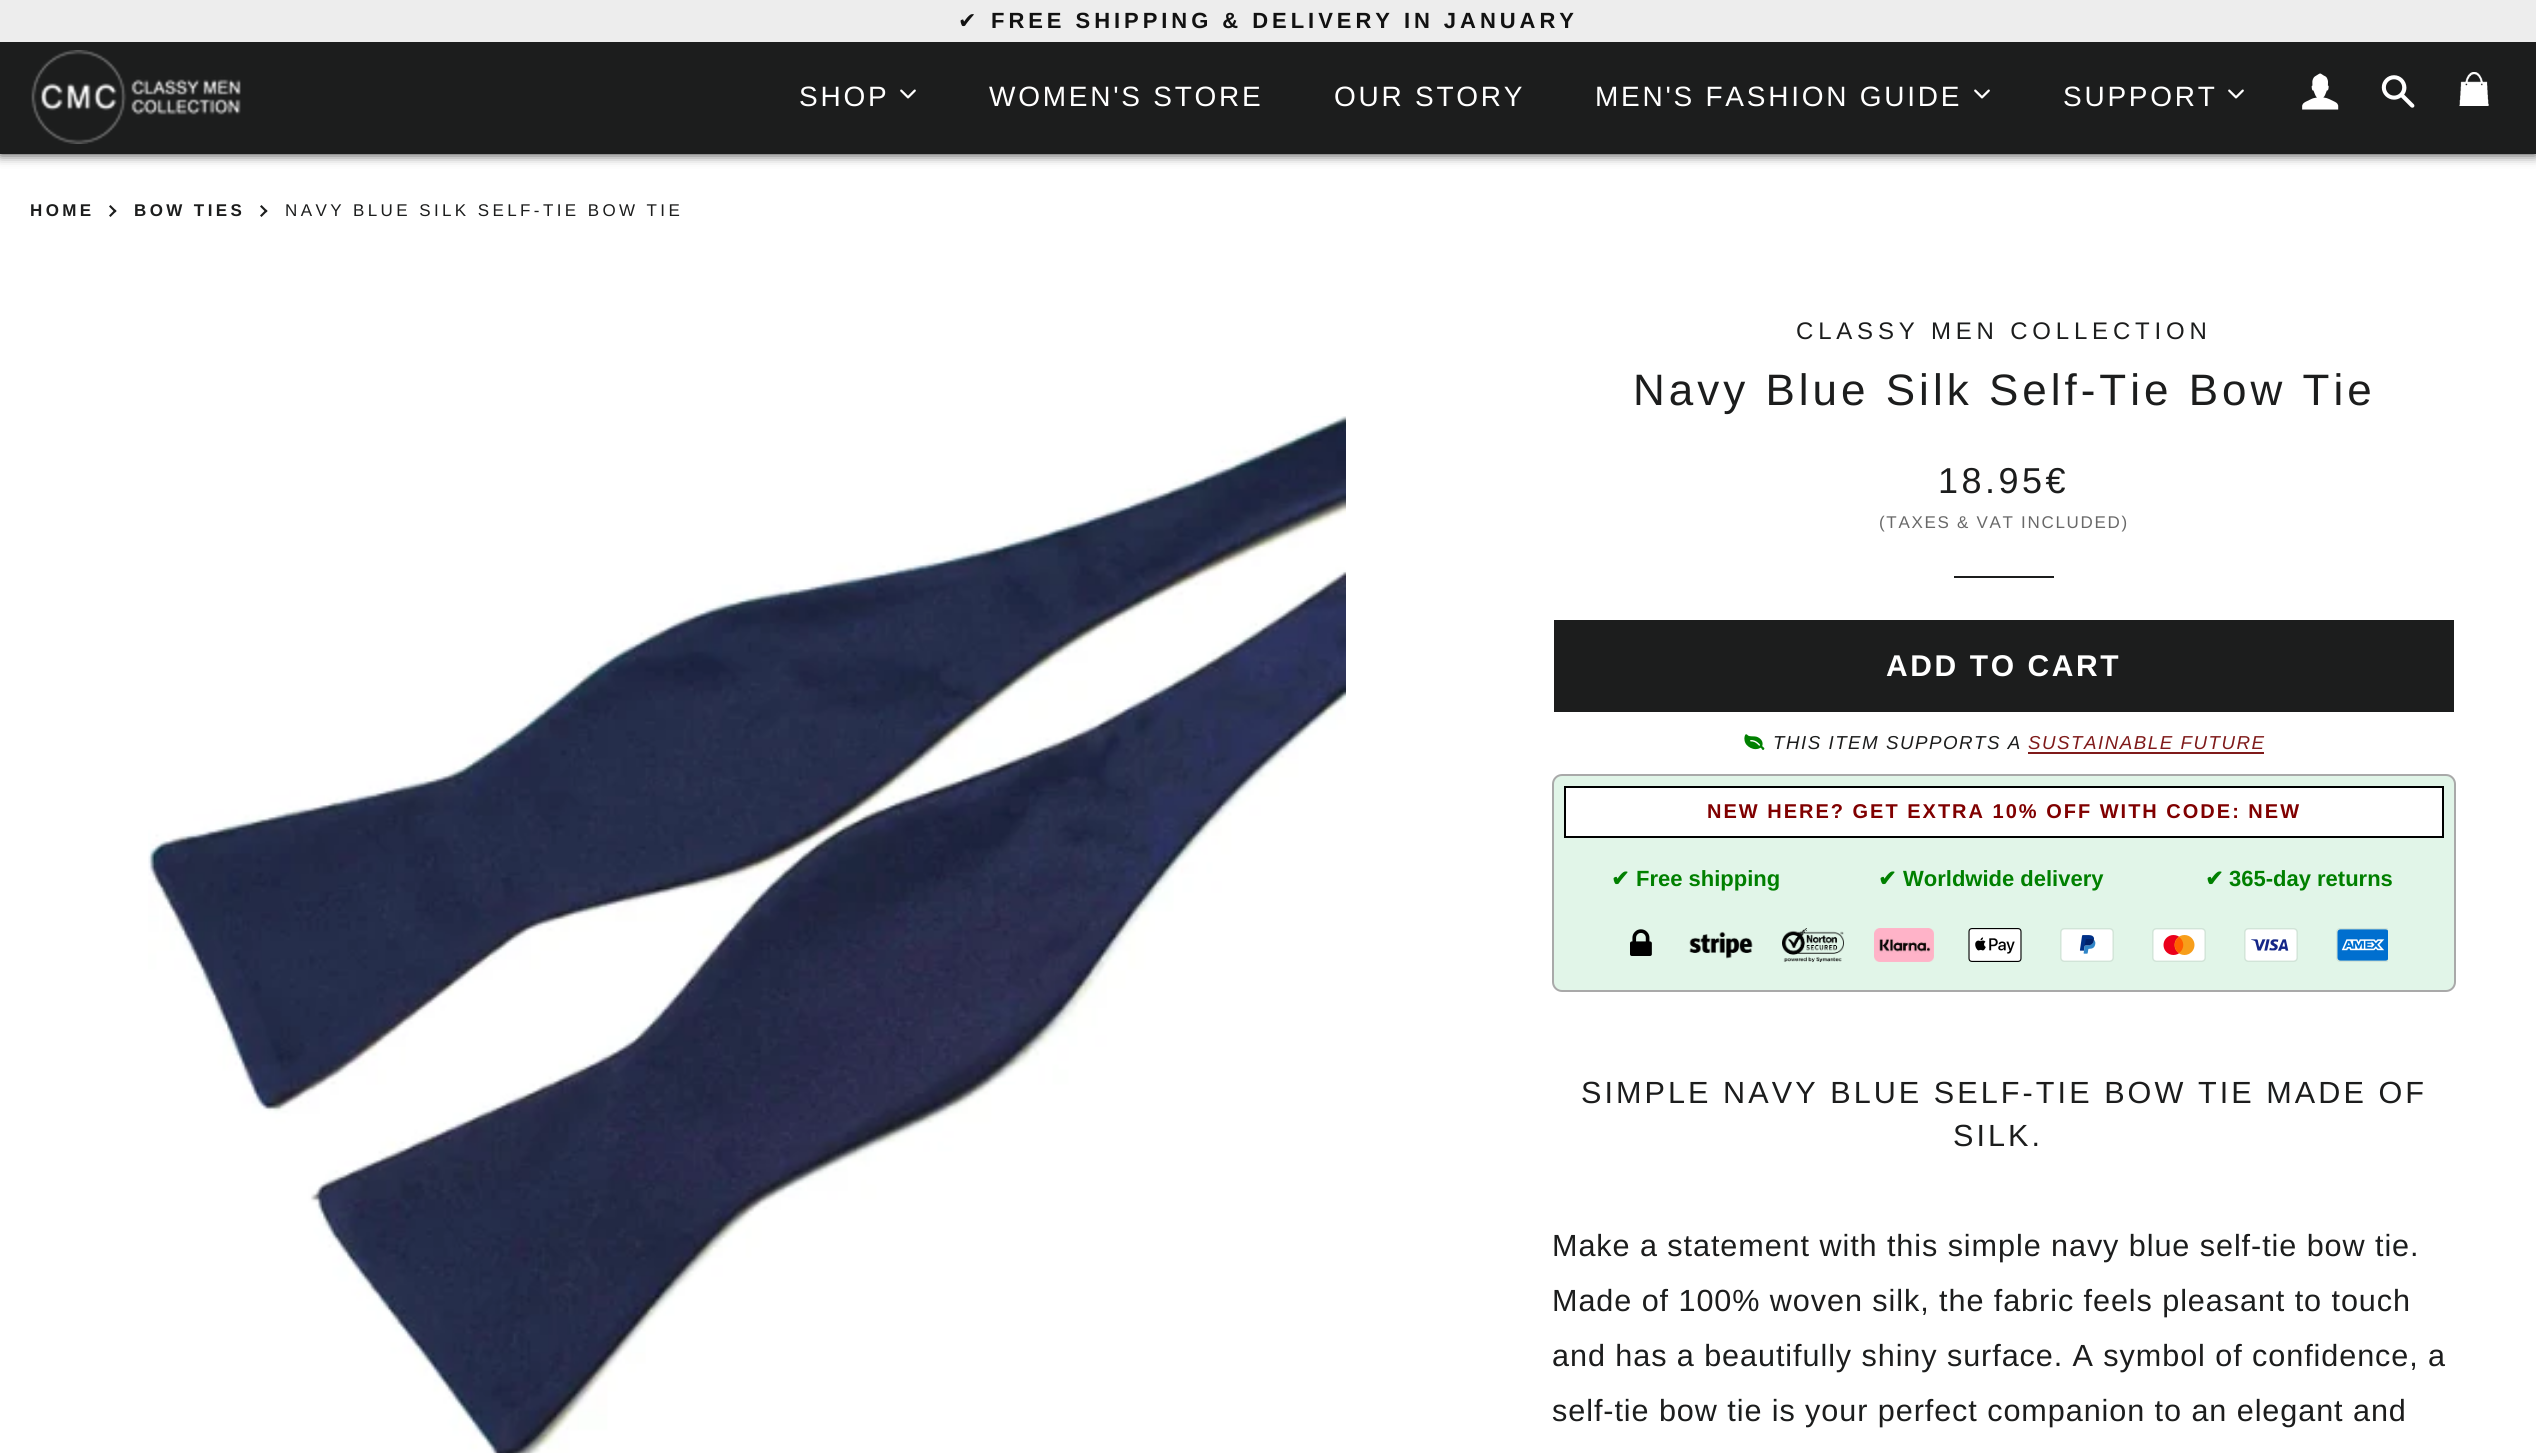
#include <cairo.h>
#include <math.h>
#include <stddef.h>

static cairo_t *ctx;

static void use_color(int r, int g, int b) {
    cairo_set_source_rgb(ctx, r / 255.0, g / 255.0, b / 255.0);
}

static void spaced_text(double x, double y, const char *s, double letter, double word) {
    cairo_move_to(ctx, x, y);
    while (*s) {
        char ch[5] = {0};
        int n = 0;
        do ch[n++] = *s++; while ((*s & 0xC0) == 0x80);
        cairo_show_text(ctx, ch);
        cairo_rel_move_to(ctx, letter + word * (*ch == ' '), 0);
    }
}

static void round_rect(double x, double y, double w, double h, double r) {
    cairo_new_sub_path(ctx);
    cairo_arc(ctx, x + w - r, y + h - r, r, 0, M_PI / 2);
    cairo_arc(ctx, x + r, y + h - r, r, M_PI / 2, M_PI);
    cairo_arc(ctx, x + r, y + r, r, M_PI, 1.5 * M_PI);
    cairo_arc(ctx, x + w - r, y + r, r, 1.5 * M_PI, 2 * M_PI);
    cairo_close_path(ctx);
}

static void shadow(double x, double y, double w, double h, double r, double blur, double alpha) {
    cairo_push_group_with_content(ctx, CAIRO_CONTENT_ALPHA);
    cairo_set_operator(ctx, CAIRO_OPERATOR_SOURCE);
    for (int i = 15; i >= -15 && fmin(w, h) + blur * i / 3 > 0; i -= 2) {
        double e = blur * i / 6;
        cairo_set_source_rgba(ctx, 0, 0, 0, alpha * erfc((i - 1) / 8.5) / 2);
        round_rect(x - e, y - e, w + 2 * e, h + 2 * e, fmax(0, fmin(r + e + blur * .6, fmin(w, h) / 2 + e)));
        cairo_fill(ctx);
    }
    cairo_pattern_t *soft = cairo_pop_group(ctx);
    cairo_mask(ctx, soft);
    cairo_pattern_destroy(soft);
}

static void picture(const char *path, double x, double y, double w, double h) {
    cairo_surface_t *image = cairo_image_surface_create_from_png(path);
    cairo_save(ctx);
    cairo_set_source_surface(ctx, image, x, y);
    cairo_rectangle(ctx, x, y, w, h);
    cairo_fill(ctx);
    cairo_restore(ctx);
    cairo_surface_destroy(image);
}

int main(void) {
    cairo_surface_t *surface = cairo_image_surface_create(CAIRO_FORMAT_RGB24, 2536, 1453);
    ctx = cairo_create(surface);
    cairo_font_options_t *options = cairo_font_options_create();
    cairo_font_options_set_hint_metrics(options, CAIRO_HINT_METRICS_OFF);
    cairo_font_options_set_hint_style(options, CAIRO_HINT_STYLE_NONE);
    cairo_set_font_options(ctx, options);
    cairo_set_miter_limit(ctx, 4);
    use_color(255, 255, 255);
    cairo_paint(ctx);
    use_color(40, 40, 40);
    shadow(0, 0, 2536, 154, 0, 6, 1);
    use_color(28, 29, 29);
    cairo_rectangle(ctx, 0, 42, 2536, 112);
    cairo_fill(ctx);
    use_color(237, 237, 237);
    cairo_rectangle(ctx, 0, 0, 2536, 42);
    cairo_fill(ctx);
    cairo_select_font_face(ctx, "DejaVu Sans", CAIRO_FONT_SLANT_NORMAL, CAIRO_FONT_WEIGHT_NORMAL);
    cairo_set_font_size(ctx, 22);
    use_color(18, 18, 18);
    spaced_text(958, 28, "✔", 3.95, 0);
    cairo_select_font_face(ctx, "Liberation Sans", CAIRO_FONT_SLANT_NORMAL, CAIRO_FONT_WEIGHT_BOLD);
    spaced_text(991, 28, "FREE SHIPPING & DELIVERY IN JANUARY", 3.95, 0);
    picture("img1.png", 31, 50, 210, 94);
    cairo_select_font_face(ctx, "Liberation Sans", CAIRO_FONT_SLANT_NORMAL, CAIRO_FONT_WEIGHT_NORMAL);
    cairo_set_font_size(ctx, 28);
    use_color(255, 255, 255);
    spaced_text(799, 106, "SHOP", 2.75, 0);
    picture("img2.png", 900, 89, 16, 10);
    spaced_text(989, 106, "WOMEN'S STORE", 2.75, 0);
    spaced_text(1334, 106, "OUR STORY", 2.75, 0);
    spaced_text(1595, 106, "MEN'S FASHION GUIDE", 2.75, 0);
    picture("img2.png", 1974, 89, 16, 10);
    spaced_text(2063, 106, "SUPPORT", 2.75, 0);
    picture("img2.png", 2228, 89, 16, 10);
    picture("img3.png", 2302, 73, 37, 37);
    picture("img4.png", 2381, 75, 34, 33);
    picture("img5.png", 2459, 72, 30, 34);
    cairo_select_font_face(ctx, "Liberation Sans", CAIRO_FONT_SLANT_NORMAL, CAIRO_FONT_WEIGHT_BOLD);
    cairo_set_font_size(ctx, 17);
    use_color(28, 29, 29);
    spaced_text(30, 216, "HOME", 3.4, 0);
    cairo_new_path(ctx);
    cairo_move_to(ctx, 110.5, 205);
    cairo_line_to(ctx, 116.5, 211);
    cairo_line_to(ctx, 115, 212.5);
    cairo_line_to(ctx, 109, 206.5);
    cairo_close_path(ctx);
    cairo_fill(ctx);
    cairo_new_path(ctx);
    cairo_move_to(ctx, 115, 209.5);
    cairo_line_to(ctx, 116.5, 211);
    cairo_line_to(ctx, 110.5, 217);
    cairo_line_to(ctx, 109, 215.5);
    cairo_close_path(ctx);
    cairo_fill(ctx);
    spaced_text(134, 216, "BOW TIES", 3.4, 0);
    cairo_new_path(ctx);
    cairo_move_to(ctx, 261.5, 205);
    cairo_line_to(ctx, 267.5, 211);
    cairo_line_to(ctx, 266, 212.5);
    cairo_line_to(ctx, 260, 206.5);
    cairo_close_path(ctx);
    cairo_fill(ctx);
    cairo_new_path(ctx);
    cairo_move_to(ctx, 266, 209.5);
    cairo_line_to(ctx, 267.5, 211);
    cairo_line_to(ctx, 261.5, 217);
    cairo_line_to(ctx, 260, 215.5);
    cairo_close_path(ctx);
    cairo_fill(ctx);
    cairo_select_font_face(ctx, "Liberation Sans", CAIRO_FONT_SLANT_NORMAL, CAIRO_FONT_WEIGHT_NORMAL);
    spaced_text(285, 216, "NAVY BLUE SILK SELF-TIE BOW TIE", 3.4, 0);
    picture("img6.png", 148, 416, 1198, 1037);
    cairo_set_font_size(ctx, 24);
    spaced_text(1796, 339, "CLASSY MEN COLLECTION", 4.8, 0);
    cairo_set_font_size(ctx, 44);
    spaced_text(1633, 405, "Navy Blue Silk Self-Tie Bow Tie", 4, 0);
    cairo_set_font_size(ctx, 36);
    spaced_text(1938, 493, "18.95€", 3.5, 0);
    cairo_set_font_size(ctx, 17);
    use_color(105, 105, 105);
    spaced_text(1879, 528, "(TAXES & VAT INCLUDED)", 1.7, 0);
    use_color(28, 29, 29);
    cairo_rectangle(ctx, 1954, 576, 100, 2);
    cairo_fill(ctx);
    cairo_rectangle(ctx, 1554, 620, 900, 92);
    cairo_fill(ctx);
    cairo_select_font_face(ctx, "Liberation Sans", CAIRO_FONT_SLANT_NORMAL, CAIRO_FONT_WEIGHT_BOLD);
    cairo_set_font_size(ctx, 30);
    use_color(255, 255, 255);
    spaced_text(1886, 676, "ADD TO CART", 2.6, 0);
    picture("img7.png", 1744, 734, 21, 16);
    cairo_select_font_face(ctx, "Liberation Sans", CAIRO_FONT_SLANT_ITALIC, CAIRO_FONT_WEIGHT_NORMAL);
    cairo_set_font_size(ctx, 18.75);
    use_color(28, 29, 29);
    spaced_text(1773, 749, "THIS ITEM SUPPORTS A", 1.5, 0);
    use_color(127, 26, 26);
    spaced_text(2028, 749, "SUSTAINABLE FUTURE", 1.5, 0);
    cairo_rectangle(ctx, 2028, 752, 236, 2);
    cairo_fill(ctx);
    use_color(225, 245, 232);
    round_rect(1553, 775, 902, 216, 9);
    cairo_fill_preserve(ctx);
    use_color(169, 169, 169);
    cairo_stroke(ctx);
    use_color(255, 255, 255);
    cairo_rectangle(ctx, 1565, 787, 878, 50);
    cairo_fill_preserve(ctx);
    use_color(0, 0, 0);
    cairo_stroke(ctx);
    cairo_select_font_face(ctx, "Liberation Sans", CAIRO_FONT_SLANT_NORMAL, CAIRO_FONT_WEIGHT_BOLD);
    cairo_set_font_size(ctx, 20);
    use_color(128, 0, 0);
    spaced_text(1707, 818, "NEW HERE? GET EXTRA 10% OFF WITH CODE: NEW", 2, 0);
    cairo_select_font_face(ctx, "DejaVu Sans", CAIRO_FONT_SLANT_NORMAL, CAIRO_FONT_WEIGHT_BOLD);
    cairo_set_font_size(ctx, 22);
    use_color(0, 128, 0);
    cairo_move_to(ctx, 1611, 886);
    cairo_show_text(ctx, "✔");
    cairo_select_font_face(ctx, "Liberation Sans", CAIRO_FONT_SLANT_NORMAL, CAIRO_FONT_WEIGHT_BOLD);
    cairo_move_to(ctx, 1636, 886);
    cairo_show_text(ctx, "Free shipping");
    cairo_select_font_face(ctx, "DejaVu Sans", CAIRO_FONT_SLANT_NORMAL, CAIRO_FONT_WEIGHT_BOLD);
    cairo_move_to(ctx, 1878, 886);
    cairo_show_text(ctx, "✔");
    cairo_select_font_face(ctx, "Liberation Sans", CAIRO_FONT_SLANT_NORMAL, CAIRO_FONT_WEIGHT_BOLD);
    cairo_move_to(ctx, 1903, 886);
    cairo_show_text(ctx, "Worldwide delivery");
    cairo_select_font_face(ctx, "DejaVu Sans", CAIRO_FONT_SLANT_NORMAL, CAIRO_FONT_WEIGHT_BOLD);
    cairo_move_to(ctx, 2205, 886);
    cairo_show_text(ctx, "✔");
    cairo_select_font_face(ctx, "Liberation Sans", CAIRO_FONT_SLANT_NORMAL, CAIRO_FONT_WEIGHT_BOLD);
    cairo_move_to(ctx, 2229, 886);
    cairo_show_text(ctx, "365-day returns");
    picture("img8.png", 1630, 929, 22, 27);
    picture("img9.png", 1689, 931, 64, 28);
    picture("img10.png", 1782, 928, 62, 34);
    picture("img11.png", 1874, 928, 60, 34);
    picture("img12.png", 1968, 928, 54, 34);
    picture("img13.png", 2060, 928, 54, 34);
    picture("img14.png", 2152, 928, 54, 34);
    picture("img15.png", 2244, 928, 54, 34);
    picture("img16.png", 2336, 928, 52, 34);
    cairo_select_font_face(ctx, "Liberation Sans", CAIRO_FONT_SLANT_NORMAL, CAIRO_FONT_WEIGHT_NORMAL);
    cairo_set_font_size(ctx, 30.6);
    use_color(28, 29, 29);
    spaced_text(1581, 1103, "SIMPLE NAVY BLUE SELF-TIE BOW TIE MADE OF", 3.05, 0);
    spaced_text(1953, 1146, "SILK.", 3.05, 0);
    spaced_text(1552, 1256, "Make a statement with this simple navy blue self-tie bow tie.", 0.92, 0);
    spaced_text(1552, 1311, "Made of 100% woven silk, the fabric feels pleasant to touch", 0.92, 0);
    spaced_text(1552, 1366, "and has a beautifully shiny surface. A symbol of confidence, a", 0.92, 0);
    spaced_text(1552, 1421, "self-tie bow tie is your perfect companion to an elegant and", 0.92, 0);
    cairo_surface_write_to_png(surface, "result.png");
    cairo_font_options_destroy(options);
    cairo_destroy(ctx);
    cairo_surface_destroy(surface);
    return 0;
}
